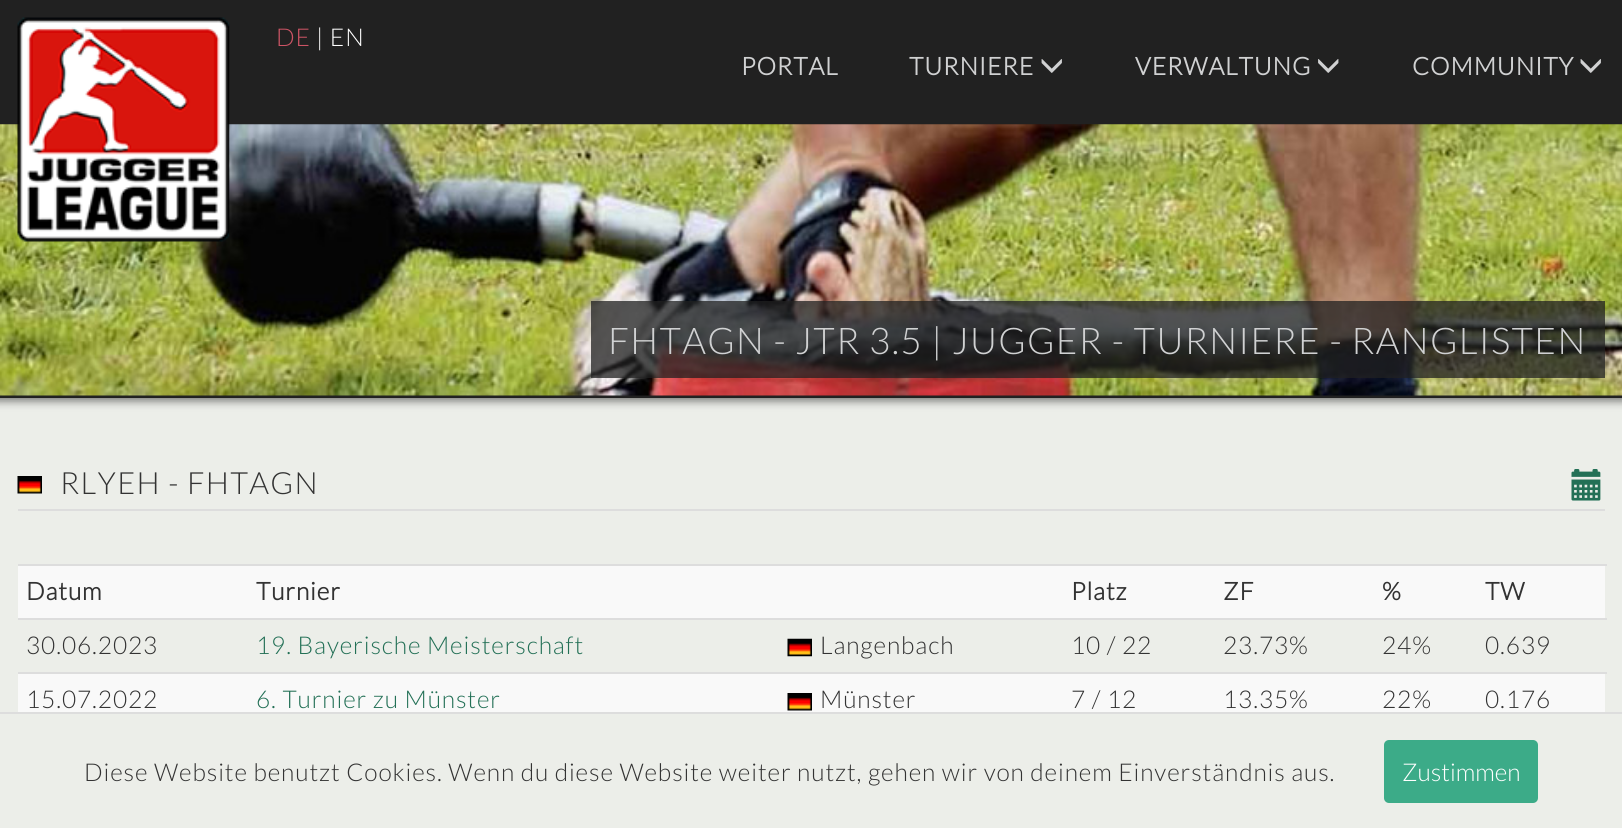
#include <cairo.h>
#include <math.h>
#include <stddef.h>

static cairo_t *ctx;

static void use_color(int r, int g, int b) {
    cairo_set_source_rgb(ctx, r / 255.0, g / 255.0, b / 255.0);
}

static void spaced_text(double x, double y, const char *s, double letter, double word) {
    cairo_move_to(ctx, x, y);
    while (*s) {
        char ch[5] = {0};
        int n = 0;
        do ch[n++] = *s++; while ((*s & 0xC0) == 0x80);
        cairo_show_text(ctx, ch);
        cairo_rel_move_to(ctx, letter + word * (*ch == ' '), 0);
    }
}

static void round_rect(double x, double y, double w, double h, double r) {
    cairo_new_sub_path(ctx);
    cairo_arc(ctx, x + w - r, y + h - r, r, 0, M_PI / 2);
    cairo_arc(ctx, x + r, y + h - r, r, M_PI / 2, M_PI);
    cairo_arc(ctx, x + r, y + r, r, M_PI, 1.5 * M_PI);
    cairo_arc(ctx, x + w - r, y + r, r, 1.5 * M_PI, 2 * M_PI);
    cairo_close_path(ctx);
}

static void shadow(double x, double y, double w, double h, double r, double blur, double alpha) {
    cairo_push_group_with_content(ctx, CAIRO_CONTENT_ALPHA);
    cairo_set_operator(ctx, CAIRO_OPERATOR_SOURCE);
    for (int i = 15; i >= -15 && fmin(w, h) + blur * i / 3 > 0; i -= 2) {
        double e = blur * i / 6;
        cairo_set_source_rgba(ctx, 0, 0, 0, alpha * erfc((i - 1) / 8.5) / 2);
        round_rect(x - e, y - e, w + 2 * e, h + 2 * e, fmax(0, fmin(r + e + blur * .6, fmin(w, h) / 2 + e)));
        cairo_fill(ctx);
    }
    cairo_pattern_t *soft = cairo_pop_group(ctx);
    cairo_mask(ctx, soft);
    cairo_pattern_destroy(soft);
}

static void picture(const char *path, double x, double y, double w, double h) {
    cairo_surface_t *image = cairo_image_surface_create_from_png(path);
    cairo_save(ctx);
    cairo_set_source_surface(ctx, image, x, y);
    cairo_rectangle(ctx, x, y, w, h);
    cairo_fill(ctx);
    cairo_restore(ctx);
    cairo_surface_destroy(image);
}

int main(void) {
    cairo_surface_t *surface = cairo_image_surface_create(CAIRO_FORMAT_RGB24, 1622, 828);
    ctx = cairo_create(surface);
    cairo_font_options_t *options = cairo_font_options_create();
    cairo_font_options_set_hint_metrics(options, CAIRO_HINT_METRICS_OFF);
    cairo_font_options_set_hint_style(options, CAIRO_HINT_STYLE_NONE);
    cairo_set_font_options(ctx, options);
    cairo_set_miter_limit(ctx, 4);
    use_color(236, 238, 233);
    cairo_paint(ctx);
    use_color(0, 0, 0);
    shadow(-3, -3, 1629, 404, 0, 4.5, 0.5);
    use_color(33, 33, 33);
    cairo_rectangle(ctx, 0, 0, 1622, 398);
    cairo_fill(ctx);
    picture("img4.png", 0, 124, 1622, 272);
    picture("img1.png", 17, 17, 213, 225);
    cairo_select_font_face(ctx, "Lato Light", CAIRO_FONT_SLANT_NORMAL, CAIRO_FONT_WEIGHT_NORMAL);
    cairo_set_font_size(ctx, 24.5);
    use_color(205, 84, 101);
    spaced_text(276, 46, "DE", 0.88, 0);
    use_color(255, 255, 255);
    spaced_text(316, 46, "| EN", 0.88, 0);
    cairo_select_font_face(ctx, "Lato", CAIRO_FONT_SLANT_NORMAL, CAIRO_FONT_WEIGHT_BOLD);
    use_color(208, 209, 210);
    spaced_text(741, 75, "PORTAL", 0.88, 0);
    spaced_text(909, 75, "TURNIERE", 0.88, 0);
    picture("img2.png", 1041, 59, 21, 14);
    spaced_text(1135, 75, "VERWALTUNG", 0.88, 0);
    picture("img3.png", 1318, 59, 21, 14);
    spaced_text(1412, 75, "COMMUNITY", 0.88, 0);
    picture("img2.png", 1580, 59, 21, 14);
    cairo_set_source_rgba(ctx, 0.129, 0.129, 0.129, 0.75);
    cairo_rectangle(ctx, 591, 301, 1014, 77);
    cairo_fill(ctx);
    cairo_select_font_face(ctx, "Lato Light", CAIRO_FONT_SLANT_NORMAL, CAIRO_FONT_WEIGHT_NORMAL);
    cairo_set_font_size(ctx, 36.75);
    use_color(208, 209, 210);
    spaced_text(608, 354, "FHTAGN - JTR 3.5 | JUGGER - TURNIERE - RANGLISTEN", 1.3, 0);
    use_color(221, 221, 221);
    cairo_rectangle(ctx, 18, 509, 1587, 2);
    cairo_fill(ctx);
    picture("img5.png", 17, 476, 25, 18);
    cairo_set_font_size(ctx, 30.6);
    use_color(51, 51, 51);
    spaced_text(60, 494, "RLYEH - FHTAGN", 1.3, 0);
    picture("img6.png", 1571, 469, 30, 32);
    use_color(249, 249, 249);
    cairo_rectangle(ctx, 18, 566, 1587, 52);
    cairo_fill(ctx);
    cairo_select_font_face(ctx, "Lato", CAIRO_FONT_SLANT_NORMAL, CAIRO_FONT_WEIGHT_BOLD);
    cairo_set_font_size(ctx, 24.5);
    use_color(51, 51, 51);
    spaced_text(26, 600, "Datum", 0.88, 0);
    spaced_text(256, 600, "Turnier", 0.88, 0);
    spaced_text(1071, 600, "Platz", 0.88, 0);
    spaced_text(1223, 600, "ZF", 0.88, 0);
    spaced_text(1382, 600, "%", 0.88, 0);
    use_color(221, 221, 221);
    cairo_rectangle(ctx, 18, 564, 1589, 2);
    cairo_fill(ctx);
    use_color(51, 51, 51);
    spaced_text(1485, 600, "TW", 0.88, 0);
    cairo_select_font_face(ctx, "Lato Light", CAIRO_FONT_SLANT_NORMAL, CAIRO_FONT_WEIGHT_NORMAL);
    spaced_text(26, 654, "30.06.2023", 0.88, 0);
    use_color(35, 112, 86);
    spaced_text(256, 654, "19. Bayerische Meisterschaft", 0.88, 0);
    picture("img7.png", 787, 638, 25, 19);
    use_color(51, 51, 51);
    spaced_text(820, 654, "Langenbach", 0.88, 0);
    spaced_text(1071, 654, "10 / 22", 0.88, 0);
    spaced_text(1223, 654, "23.73%", 0.88, 0);
    spaced_text(1382, 654, "24%", 0.88, 0);
    use_color(221, 221, 221);
    cairo_rectangle(ctx, 18, 618, 1589, 2);
    cairo_fill(ctx);
    use_color(51, 51, 51);
    spaced_text(1485, 654, "0.639", 0.88, 0);
    use_color(249, 249, 249);
    cairo_rectangle(ctx, 18, 674, 1587, 38);
    cairo_fill(ctx);
    use_color(51, 51, 51);
    spaced_text(26, 708, "15.07.2022", 0.88, 0);
    use_color(35, 112, 86);
    spaced_text(256, 708, "6. Turnier zu Münster", 0.88, 0);
    picture("img8.png", 787, 693, 25, 18);
    use_color(51, 51, 51);
    spaced_text(820, 708, "Münster", 0.88, 0);
    spaced_text(1071, 708, "7 / 12", 0.88, 0);
    spaced_text(1223, 708, "13.35%", 0.88, 0);
    spaced_text(1382, 708, "22%", 0.88, 0);
    use_color(221, 221, 221);
    cairo_rectangle(ctx, 18, 672, 1589, 2);
    cairo_fill(ctx);
    use_color(51, 51, 51);
    spaced_text(1485, 708, "0.176", 0.88, 0);
    use_color(221, 221, 221);
    cairo_rectangle(ctx, 0, 712, 1622, 2);
    cairo_fill(ctx);
    use_color(51, 51, 51);
    spaced_text(84, 781, "Diese Website benutzt Cookies. Wenn du diese Website weiter nutzt, gehen wir von deinem Einverständnis aus.", 0.88, 0);
    use_color(60, 171, 136);
    round_rect(1384, 740, 154, 63, 5);
    cairo_fill(ctx);
    use_color(255, 255, 255);
    cairo_move_to(ctx, 1402, 781);
    cairo_show_text(ctx, "Zustimmen");
    cairo_surface_write_to_png(surface, "result.png");
    cairo_font_options_destroy(options);
    cairo_destroy(ctx);
    cairo_surface_destroy(surface);
    return 0;
}
